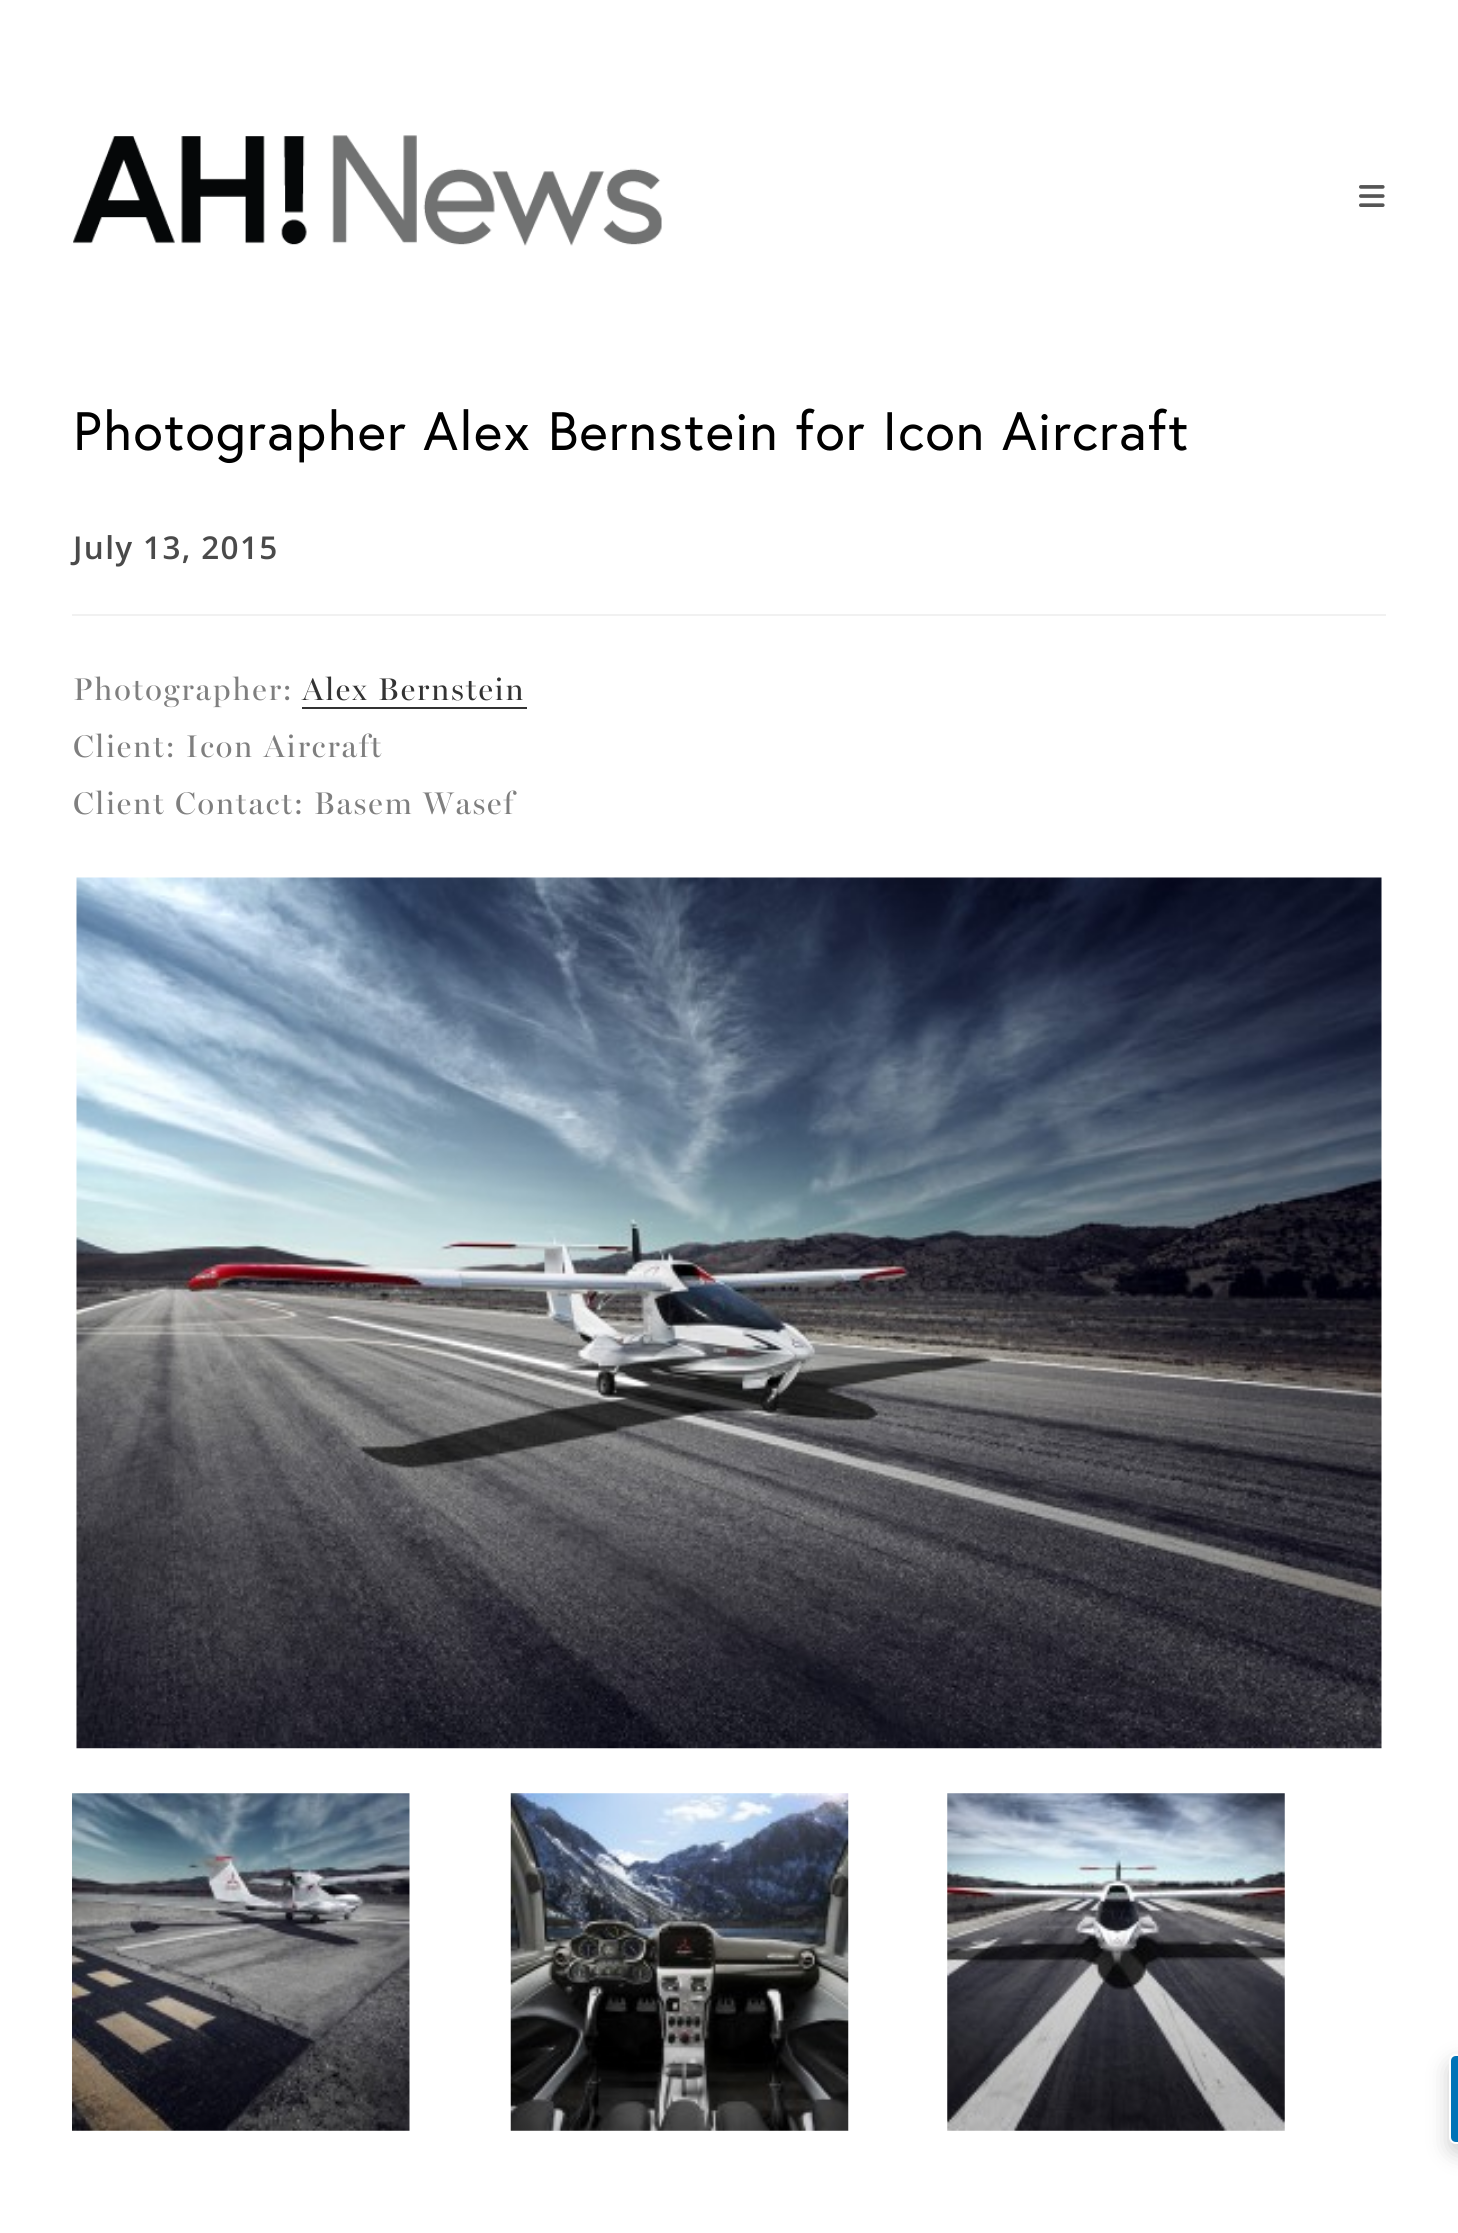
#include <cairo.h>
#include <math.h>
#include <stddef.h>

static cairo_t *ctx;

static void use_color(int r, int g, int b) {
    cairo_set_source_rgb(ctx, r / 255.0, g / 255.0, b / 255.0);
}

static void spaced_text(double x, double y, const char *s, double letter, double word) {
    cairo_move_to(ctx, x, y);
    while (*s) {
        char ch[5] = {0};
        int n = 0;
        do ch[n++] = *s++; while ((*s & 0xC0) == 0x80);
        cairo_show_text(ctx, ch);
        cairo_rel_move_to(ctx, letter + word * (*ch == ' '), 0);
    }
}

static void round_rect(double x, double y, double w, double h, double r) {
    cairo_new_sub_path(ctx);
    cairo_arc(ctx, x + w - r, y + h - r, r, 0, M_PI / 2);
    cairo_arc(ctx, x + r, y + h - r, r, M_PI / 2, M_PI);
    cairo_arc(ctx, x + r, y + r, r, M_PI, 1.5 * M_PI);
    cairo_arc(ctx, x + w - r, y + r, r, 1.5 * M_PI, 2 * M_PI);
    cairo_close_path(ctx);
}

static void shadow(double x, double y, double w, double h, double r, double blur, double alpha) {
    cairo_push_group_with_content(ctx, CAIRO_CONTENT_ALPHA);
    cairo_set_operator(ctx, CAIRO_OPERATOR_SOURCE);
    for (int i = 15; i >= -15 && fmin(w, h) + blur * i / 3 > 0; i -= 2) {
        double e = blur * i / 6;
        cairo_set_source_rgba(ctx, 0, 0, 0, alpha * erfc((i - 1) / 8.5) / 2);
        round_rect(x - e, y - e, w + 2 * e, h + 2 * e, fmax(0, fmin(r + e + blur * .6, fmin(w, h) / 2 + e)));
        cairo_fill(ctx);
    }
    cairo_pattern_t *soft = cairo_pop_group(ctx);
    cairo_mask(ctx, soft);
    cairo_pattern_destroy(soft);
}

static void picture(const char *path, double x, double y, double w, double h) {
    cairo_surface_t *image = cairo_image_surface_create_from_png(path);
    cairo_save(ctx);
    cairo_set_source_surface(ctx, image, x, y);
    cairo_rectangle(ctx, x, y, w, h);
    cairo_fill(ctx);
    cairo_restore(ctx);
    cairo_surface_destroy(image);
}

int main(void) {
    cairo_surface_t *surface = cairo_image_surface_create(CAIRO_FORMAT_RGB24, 1458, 2233);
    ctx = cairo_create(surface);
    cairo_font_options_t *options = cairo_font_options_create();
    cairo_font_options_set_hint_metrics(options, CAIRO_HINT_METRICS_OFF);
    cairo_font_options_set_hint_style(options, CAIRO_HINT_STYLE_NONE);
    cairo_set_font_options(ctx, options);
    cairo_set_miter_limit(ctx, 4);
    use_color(255, 255, 255);
    cairo_paint(ctx);
    picture("img1.png", 73, 135, 589, 111);
    picture("img2.png", 1359, 185, 26, 22);
    cairo_select_font_face(ctx, "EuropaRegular", CAIRO_FONT_SLANT_NORMAL, CAIRO_FONT_WEIGHT_NORMAL);
    cairo_set_font_size(ctx, 54);
    use_color(0, 0, 0);
    spaced_text(73, 450, "Photographer Alex Bernstein for Icon Aircraft", 1.35, 0);
    use_color(241, 241, 241);
    cairo_rectangle(ctx, 72, 614, 1314, 2);
    cairo_fill(ctx);
    cairo_select_font_face(ctx, "Open Sans SemiBold", CAIRO_FONT_SLANT_NORMAL, CAIRO_FONT_WEIGHT_NORMAL);
    cairo_set_font_size(ctx, 31.5);
    use_color(74, 74, 74);
    spaced_text(73, 559, "July 13, 2015", 1.35, 0);
    cairo_select_font_face(ctx, "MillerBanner", CAIRO_FONT_SLANT_NORMAL, CAIRO_FONT_WEIGHT_NORMAL);
    use_color(127, 127, 127);
    spaced_text(73, 700, "Photographer:", 1.8, 0);
    use_color(51, 51, 51);
    spaced_text(302, 700, "Alex Bernstein", 1.8, 0);
    cairo_rectangle(ctx, 302, 707, 225, 2);
    cairo_fill(ctx);
    use_color(127, 127, 127);
    spaced_text(73, 757, "Client: Icon Aircraft", 1.8, 0);
    spaced_text(73, 814, "Client Contact: Basem Wasef", 1.8, 0);
    picture("img3.png", 76, 877, 1306, 872);
    picture("img4.png", 72, 1793, 338, 338);
    picture("img5.png", 510, 1793, 339, 338);
    picture("img6.png", 947, 1793, 338, 338);
    use_color(0, 0, 0);
    shadow(1449, 2063, 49, 90, 7, 11, 0.2);
    use_color(0, 115, 183);
    cairo_new_path(ctx);
    cairo_move_to(ctx, 1456, 2055);
    cairo_line_to(ctx, 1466, 2055);
    cairo_line_to(ctx, 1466, 2143);
    cairo_line_to(ctx, 1456, 2143);
    cairo_curve_to(ctx, 1452.5, 2143, 1450, 2140.5, 1450, 2137);
    cairo_line_to(ctx, 1450, 2061);
    cairo_curve_to(ctx, 1450, 2057.5, 1452.5, 2055, 1456, 2055);
    cairo_close_path(ctx);
    cairo_fill_preserve(ctx);
    use_color(255, 255, 255);
    cairo_stroke(ctx);
    cairo_surface_write_to_png(surface, "result.png");
    cairo_font_options_destroy(options);
    cairo_destroy(ctx);
    cairo_surface_destroy(surface);
    return 0;
}
